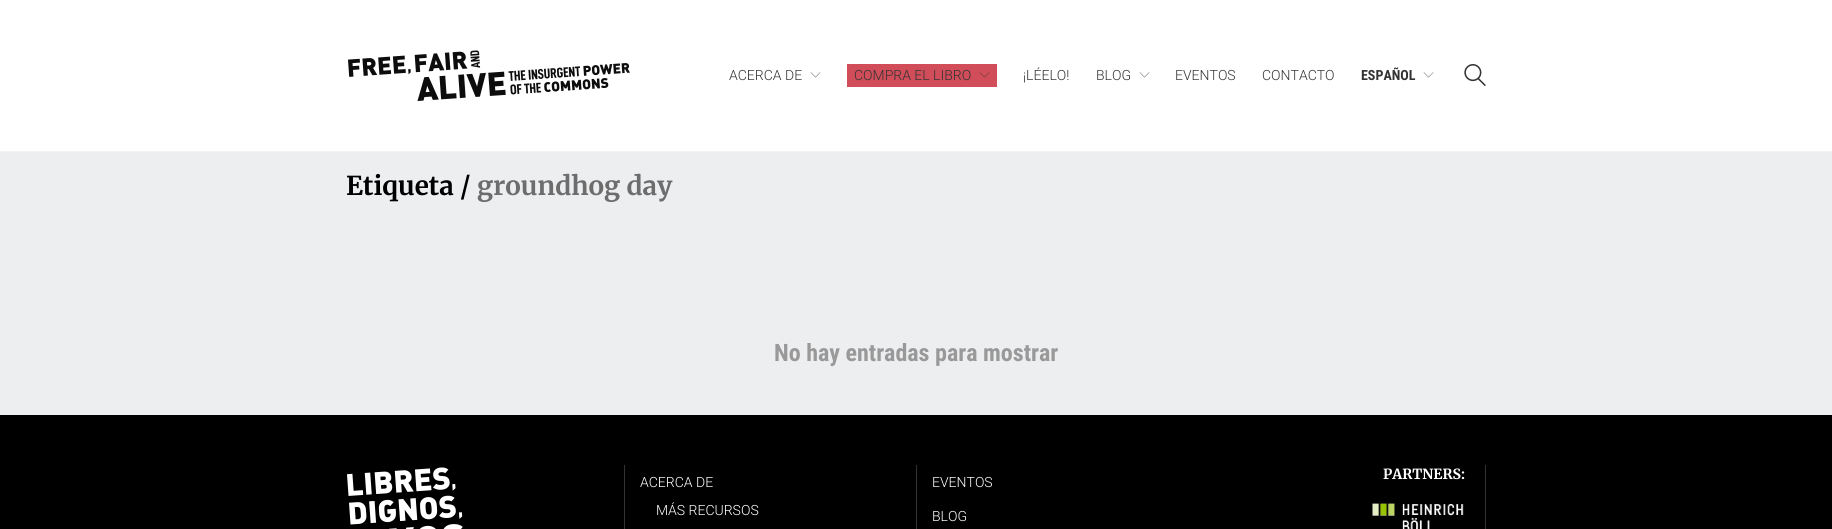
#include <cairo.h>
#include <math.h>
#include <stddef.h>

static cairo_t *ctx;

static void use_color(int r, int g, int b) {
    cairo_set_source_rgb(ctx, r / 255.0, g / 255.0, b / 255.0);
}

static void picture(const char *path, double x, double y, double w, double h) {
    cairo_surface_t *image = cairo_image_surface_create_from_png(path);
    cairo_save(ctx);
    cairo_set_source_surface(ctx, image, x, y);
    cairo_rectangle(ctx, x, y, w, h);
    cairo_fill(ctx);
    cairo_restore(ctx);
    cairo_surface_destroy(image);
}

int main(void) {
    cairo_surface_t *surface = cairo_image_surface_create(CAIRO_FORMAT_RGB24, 1832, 529);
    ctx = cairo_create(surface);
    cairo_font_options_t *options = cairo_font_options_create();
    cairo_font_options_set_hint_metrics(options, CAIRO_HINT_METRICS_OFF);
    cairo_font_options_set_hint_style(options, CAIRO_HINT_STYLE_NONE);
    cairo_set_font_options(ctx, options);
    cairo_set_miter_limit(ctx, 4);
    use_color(237, 238, 240);
    cairo_paint(ctx);
    use_color(255, 255, 255);
    cairo_rectangle(ctx, 0, 0, 1832, 151);
    cairo_fill(ctx);
    use_color(243, 243, 243);
    cairo_rectangle(ctx, 0, 151, 1832, 1);
    cairo_fill(ctx);
    picture("img1.png", 348, 50, 282, 51);
    cairo_select_font_face(ctx, "Roboto Light", CAIRO_FONT_SLANT_NORMAL, CAIRO_FONT_WEIGHT_NORMAL);
    cairo_set_font_size(ctx, 14);
    use_color(51, 51, 51);
    cairo_move_to(ctx, 729, 80);
    cairo_show_text(ctx, "ACERCA DE");
    picture("img2.png", 810, 72, 11, 6);
    use_color(209, 77, 89);
    cairo_rectangle(ctx, 847, 64, 150, 23);
    cairo_fill(ctx);
    use_color(51, 51, 51);
    cairo_move_to(ctx, 854, 80);
    cairo_show_text(ctx, "COMPRA EL LIBRO");
    picture("img3.png", 979, 72, 11, 6);
    cairo_move_to(ctx, 1023, 80);
    cairo_show_text(ctx, "¡LÉELO!");
    cairo_move_to(ctx, 1096, 80);
    cairo_show_text(ctx, "BLOG");
    picture("img2.png", 1139, 72, 11, 6);
    cairo_move_to(ctx, 1175, 80);
    cairo_show_text(ctx, "EVENTOS");
    cairo_move_to(ctx, 1262, 80);
    cairo_show_text(ctx, "CONTACTO");
    cairo_select_font_face(ctx, "Roboto Condensed", CAIRO_FONT_SLANT_NORMAL, CAIRO_FONT_WEIGHT_BOLD);
    cairo_move_to(ctx, 1361, 80);
    cairo_show_text(ctx, "ESPAÑOL");
    picture("img2.png", 1423, 72, 11, 6);
    picture("img4.png", 1464, 64, 22, 22);
    cairo_select_font_face(ctx, "Merriweather", CAIRO_FONT_SLANT_NORMAL, CAIRO_FONT_WEIGHT_BOLD);
    cairo_set_font_size(ctx, 26);
    use_color(0, 0, 0);
    cairo_move_to(ctx, 346, 195);
    cairo_show_text(ctx, "Etiqueta /");
    use_color(109, 109, 109);
    cairo_move_to(ctx, 477, 195);
    cairo_show_text(ctx, "groundhog day");
    cairo_select_font_face(ctx, "Roboto Condensed", CAIRO_FONT_SLANT_NORMAL, CAIRO_FONT_WEIGHT_BOLD);
    cairo_set_font_size(ctx, 24);
    use_color(153, 153, 153);
    cairo_move_to(ctx, 774, 361);
    cairo_show_text(ctx, "No hay entradas para mostrar");
    use_color(0, 0, 0);
    cairo_rectangle(ctx, 0, 415, 1832, 114);
    cairo_fill(ctx);
    picture("img5.png", 347, 467, 116, 62);
    use_color(51, 51, 51);
    cairo_rectangle(ctx, 1485, 465, 1, 64);
    cairo_fill(ctx);
    cairo_select_font_face(ctx, "Merriweather", CAIRO_FONT_SLANT_NORMAL, CAIRO_FONT_WEIGHT_BOLD);
    cairo_set_font_size(ctx, 14);
    use_color(255, 255, 255);
    cairo_move_to(ctx, 1383, 479);
    cairo_show_text(ctx, "PARTNERS:");
    picture("img6.png", 1372, 503, 92, 26);
    use_color(51, 51, 51);
    cairo_rectangle(ctx, 624, 465, 1, 64);
    cairo_fill(ctx);
    cairo_select_font_face(ctx, "Roboto Light", CAIRO_FONT_SLANT_NORMAL, CAIRO_FONT_WEIGHT_NORMAL);
    use_color(255, 255, 255);
    cairo_move_to(ctx, 640, 487);
    cairo_show_text(ctx, "ACERCA DE");
    cairo_move_to(ctx, 656, 515);
    cairo_show_text(ctx, "MÁS RECURSOS");
    use_color(51, 51, 51);
    cairo_rectangle(ctx, 916, 465, 1, 64);
    cairo_fill(ctx);
    use_color(255, 255, 255);
    cairo_move_to(ctx, 932, 487);
    cairo_show_text(ctx, "EVENTOS");
    cairo_move_to(ctx, 932, 521);
    cairo_show_text(ctx, "BLOG");
    cairo_surface_write_to_png(surface, "result.png");
    cairo_font_options_destroy(options);
    cairo_destroy(ctx);
    cairo_surface_destroy(surface);
    return 0;
}
